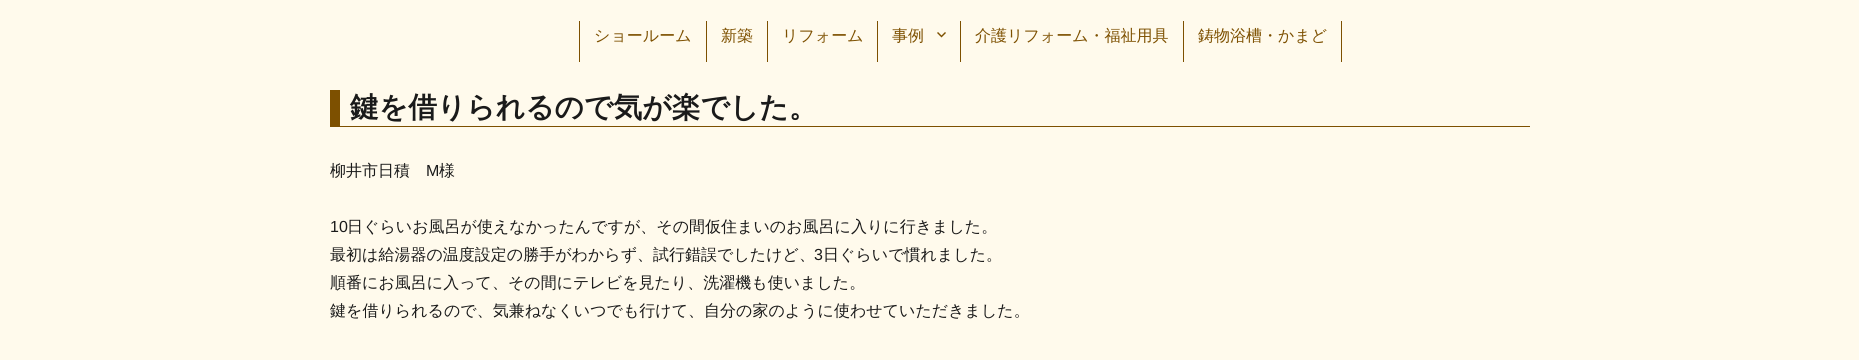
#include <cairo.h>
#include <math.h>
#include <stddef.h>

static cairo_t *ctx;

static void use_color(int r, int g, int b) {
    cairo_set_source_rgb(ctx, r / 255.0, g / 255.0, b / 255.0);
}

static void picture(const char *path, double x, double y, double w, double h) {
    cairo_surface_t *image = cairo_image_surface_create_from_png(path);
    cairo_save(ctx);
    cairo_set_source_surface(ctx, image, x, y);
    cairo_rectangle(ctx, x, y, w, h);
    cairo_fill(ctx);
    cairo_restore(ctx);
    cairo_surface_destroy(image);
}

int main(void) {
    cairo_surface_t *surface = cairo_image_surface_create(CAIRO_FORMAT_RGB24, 1859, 360);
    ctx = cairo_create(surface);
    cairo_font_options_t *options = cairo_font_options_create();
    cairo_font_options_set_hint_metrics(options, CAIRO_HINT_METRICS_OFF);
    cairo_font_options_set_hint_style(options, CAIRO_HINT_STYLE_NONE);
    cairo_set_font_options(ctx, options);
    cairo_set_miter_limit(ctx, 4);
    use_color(255, 250, 236);
    cairo_paint(ctx);
    use_color(125, 80, 0);
    cairo_rectangle(ctx, 579, 13, 1, 49);
    cairo_fill(ctx);
    cairo_rectangle(ctx, 706, 13, 1, 49);
    cairo_fill(ctx);
    cairo_rectangle(ctx, 767, 13, 1, 49);
    cairo_fill(ctx);
    cairo_rectangle(ctx, 877, 13, 1, 49);
    cairo_fill(ctx);
    cairo_rectangle(ctx, 960, 13, 1, 49);
    cairo_fill(ctx);
    cairo_rectangle(ctx, 1341, 13, 1, 49);
    cairo_fill(ctx);
    cairo_rectangle(ctx, 1183, 13, 1, 49);
    cairo_fill(ctx);
    use_color(255, 250, 236);
    cairo_rectangle(ctx, 579, 13, 763, 8);
    cairo_fill(ctx);
    cairo_select_font_face(ctx, "WenQuanYi Zen Hei Medium", CAIRO_FONT_SLANT_NORMAL, CAIRO_FONT_WEIGHT_NORMAL);
    cairo_set_font_size(ctx, 16);
    use_color(125, 80, 0);
    cairo_move_to(ctx, 594, 41);
    cairo_show_text(ctx, "ショールーム");
    cairo_move_to(ctx, 721, 41);
    cairo_show_text(ctx, "新築");
    cairo_move_to(ctx, 782, 41);
    cairo_show_text(ctx, "リフォーム");
    cairo_move_to(ctx, 892, 41);
    cairo_show_text(ctx, "事例");
    picture("img1.png", 937, 32, 9, 6);
    cairo_move_to(ctx, 975, 41);
    cairo_show_text(ctx, "介護リフォーム・福祉用具");
    cairo_move_to(ctx, 1198, 41);
    cairo_show_text(ctx, "鋳物浴槽・かまど");
    cairo_rectangle(ctx, 340, 126, 1190, 1);
    cairo_fill(ctx);
    cairo_rectangle(ctx, 330, 90, 10, 37);
    cairo_fill(ctx);
    cairo_select_font_face(ctx, "WenQuanYi Zen Hei", CAIRO_FONT_SLANT_NORMAL, CAIRO_FONT_WEIGHT_BOLD);
    cairo_set_font_size(ctx, 28.75);
    use_color(26, 26, 26);
    cairo_move_to(ctx, 350, 117);
    cairo_show_text(ctx, "鍵を借りられるので気が楽でした。");
    cairo_select_font_face(ctx, "WenQuanYi Zen Hei Medium", CAIRO_FONT_SLANT_NORMAL, CAIRO_FONT_WEIGHT_NORMAL);
    cairo_set_font_size(ctx, 16);
    cairo_move_to(ctx, 330, 176);
    cairo_show_text(ctx, "柳井市日積");
    cairo_select_font_face(ctx, "Liberation Sans", CAIRO_FONT_SLANT_NORMAL, CAIRO_FONT_WEIGHT_NORMAL);
    cairo_move_to(ctx, 426, 176);
    cairo_show_text(ctx, "M");
    cairo_select_font_face(ctx, "WenQuanYi Zen Hei Medium", CAIRO_FONT_SLANT_NORMAL, CAIRO_FONT_WEIGHT_NORMAL);
    cairo_move_to(ctx, 439, 176);
    cairo_show_text(ctx, "様");
    cairo_select_font_face(ctx, "Liberation Sans", CAIRO_FONT_SLANT_NORMAL, CAIRO_FONT_WEIGHT_NORMAL);
    cairo_move_to(ctx, 330, 232);
    cairo_show_text(ctx, "10");
    cairo_select_font_face(ctx, "WenQuanYi Zen Hei Medium", CAIRO_FONT_SLANT_NORMAL, CAIRO_FONT_WEIGHT_NORMAL);
    cairo_move_to(ctx, 347, 232);
    cairo_show_text(ctx, "日ぐらいお風呂が使えなかったんですが、その間仮住まいのお風呂に入りに行きました。");
    cairo_move_to(ctx, 330, 260);
    cairo_show_text(ctx, "最初は給湯器の温度設定の勝手がわからず、試行錯誤でしたけど、");
    cairo_select_font_face(ctx, "Liberation Sans", CAIRO_FONT_SLANT_NORMAL, CAIRO_FONT_WEIGHT_NORMAL);
    cairo_move_to(ctx, 814, 260);
    cairo_show_text(ctx, "3");
    cairo_select_font_face(ctx, "WenQuanYi Zen Hei Medium", CAIRO_FONT_SLANT_NORMAL, CAIRO_FONT_WEIGHT_NORMAL);
    cairo_move_to(ctx, 823, 260);
    cairo_show_text(ctx, "日ぐらいで慣れました。");
    cairo_move_to(ctx, 330, 288);
    cairo_show_text(ctx, "順番にお風呂に入って、その間にテレビを見たり、洗濯機も使いました。");
    cairo_move_to(ctx, 330, 316);
    cairo_show_text(ctx, "鍵を借りられるので、気兼ねなくいつでも行けて、自分の家のように使わせていただきました。");
    cairo_surface_write_to_png(surface, "result.png");
    cairo_font_options_destroy(options);
    cairo_destroy(ctx);
    cairo_surface_destroy(surface);
    return 0;
}
